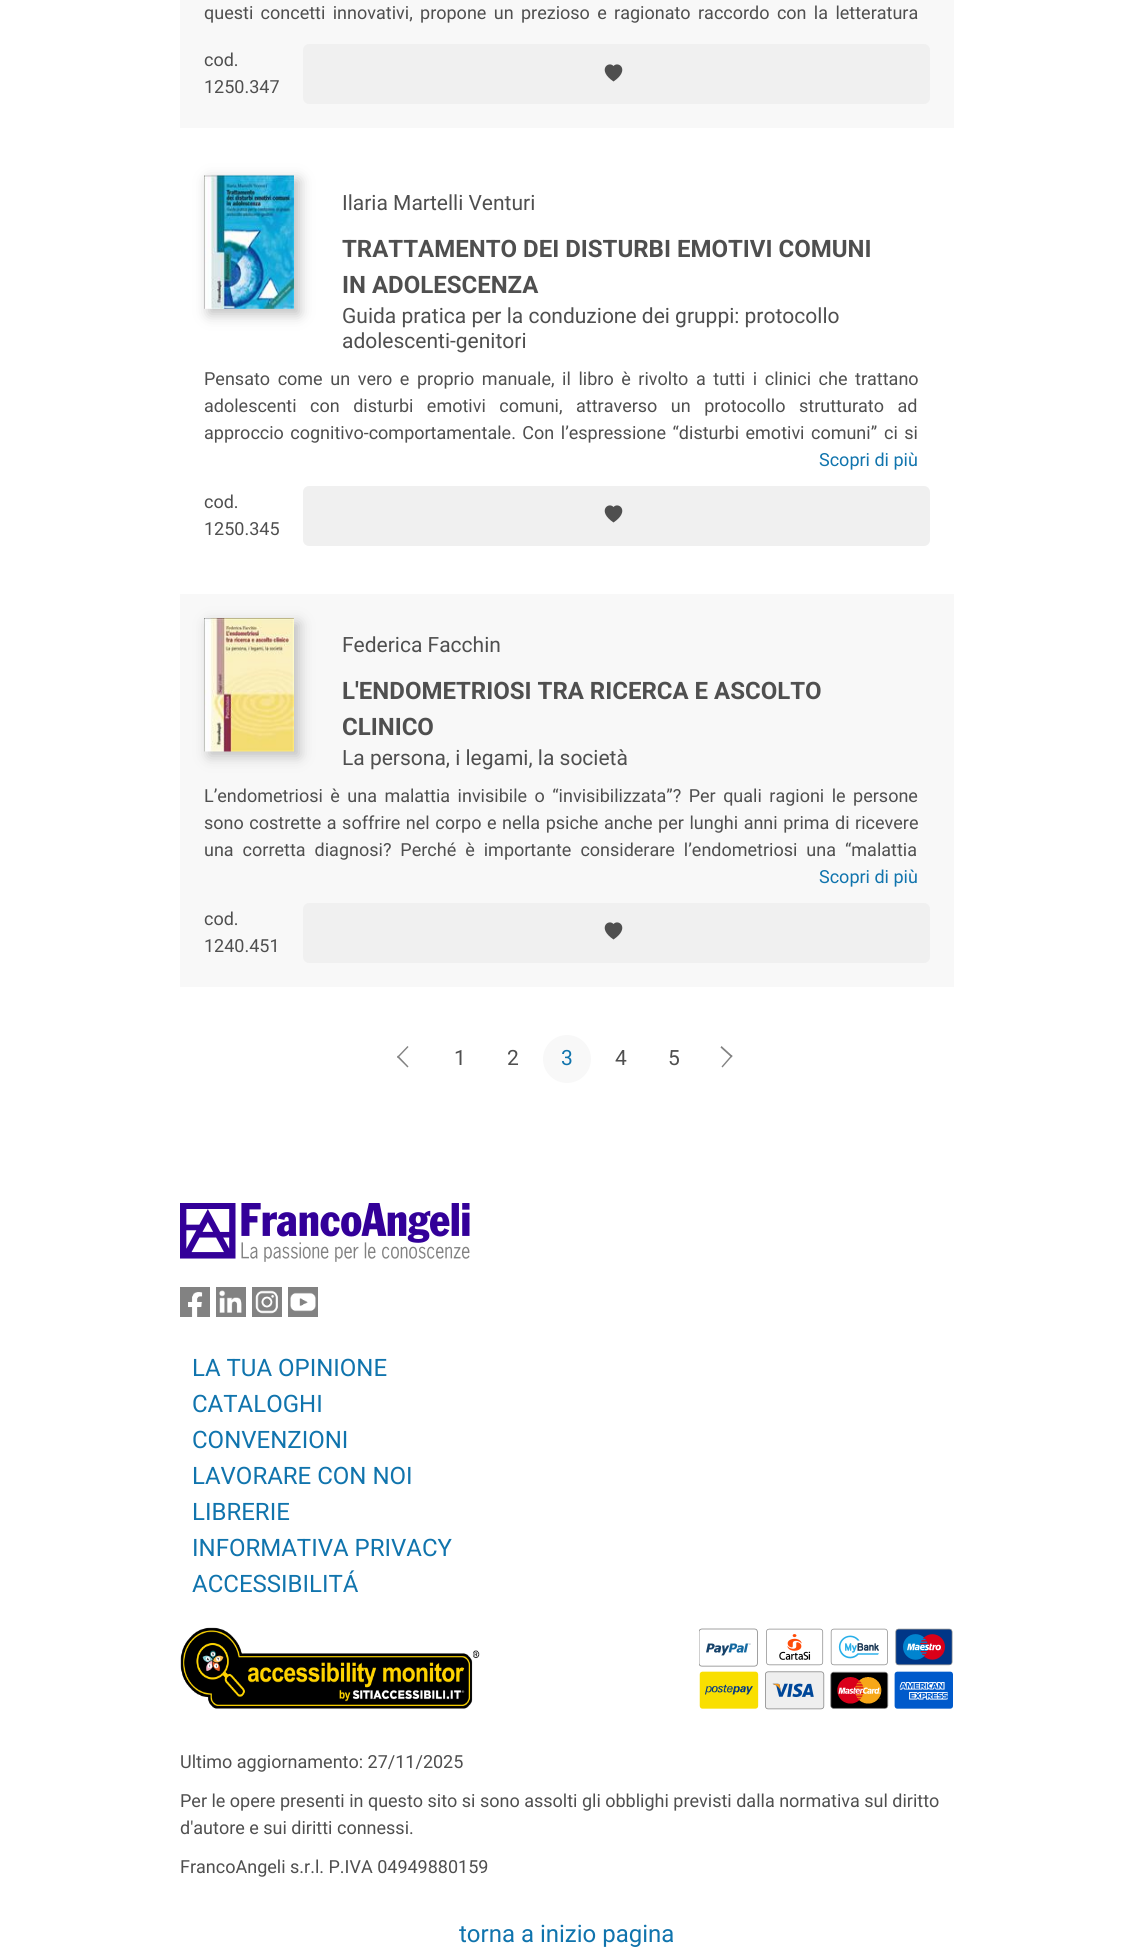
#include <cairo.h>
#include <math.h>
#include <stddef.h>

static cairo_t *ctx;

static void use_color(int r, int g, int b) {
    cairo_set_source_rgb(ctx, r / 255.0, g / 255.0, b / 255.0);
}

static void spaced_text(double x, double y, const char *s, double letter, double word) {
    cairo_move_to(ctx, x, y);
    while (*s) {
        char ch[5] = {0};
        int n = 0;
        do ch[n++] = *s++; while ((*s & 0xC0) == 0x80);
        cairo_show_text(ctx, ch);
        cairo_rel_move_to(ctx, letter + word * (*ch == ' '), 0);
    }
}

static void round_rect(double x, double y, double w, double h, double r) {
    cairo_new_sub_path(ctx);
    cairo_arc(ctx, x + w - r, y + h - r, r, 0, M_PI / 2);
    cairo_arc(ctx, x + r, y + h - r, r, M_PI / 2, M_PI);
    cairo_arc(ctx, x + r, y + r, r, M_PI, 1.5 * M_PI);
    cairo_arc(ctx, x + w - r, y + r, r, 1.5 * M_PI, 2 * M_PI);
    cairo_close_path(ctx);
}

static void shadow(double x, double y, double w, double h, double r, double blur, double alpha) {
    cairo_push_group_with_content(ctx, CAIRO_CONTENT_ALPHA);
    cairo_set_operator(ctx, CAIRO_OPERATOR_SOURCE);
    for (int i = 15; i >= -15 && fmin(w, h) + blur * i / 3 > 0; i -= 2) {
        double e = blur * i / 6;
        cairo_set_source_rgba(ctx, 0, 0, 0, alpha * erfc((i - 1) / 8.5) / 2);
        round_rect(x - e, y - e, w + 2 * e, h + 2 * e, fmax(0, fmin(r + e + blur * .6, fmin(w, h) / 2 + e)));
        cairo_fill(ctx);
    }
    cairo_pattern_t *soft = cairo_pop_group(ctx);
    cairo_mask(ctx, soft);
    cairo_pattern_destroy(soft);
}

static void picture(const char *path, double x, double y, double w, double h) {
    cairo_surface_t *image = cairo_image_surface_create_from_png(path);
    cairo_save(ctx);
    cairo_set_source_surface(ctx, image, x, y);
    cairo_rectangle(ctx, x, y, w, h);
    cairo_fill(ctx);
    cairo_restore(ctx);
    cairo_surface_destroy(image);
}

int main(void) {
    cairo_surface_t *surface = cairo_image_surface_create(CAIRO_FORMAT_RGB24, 1133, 1954);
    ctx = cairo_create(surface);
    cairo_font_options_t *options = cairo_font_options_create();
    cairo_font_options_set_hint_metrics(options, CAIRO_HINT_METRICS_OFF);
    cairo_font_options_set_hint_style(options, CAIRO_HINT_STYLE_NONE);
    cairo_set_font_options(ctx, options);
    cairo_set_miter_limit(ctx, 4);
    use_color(255, 255, 255);
    cairo_paint(ctx);
    use_color(248, 248, 248);
    cairo_rectangle(ctx, 180, 0, 774, 128);
    cairo_fill(ctx);
    cairo_select_font_face(ctx, "Roboto", CAIRO_FONT_SLANT_NORMAL, CAIRO_FONT_WEIGHT_NORMAL);
    cairo_set_font_size(ctx, 18);
    use_color(79, 79, 79);
    spaced_text(204, 19, "questi concetti innovativi, propone un prezioso e ragionato raccordo con la letteratura", 0, 2.9);
    cairo_move_to(ctx, 204, 66);
    cairo_show_text(ctx, "cod.");
    cairo_move_to(ctx, 204, 93);
    cairo_show_text(ctx, "1250.347");
    use_color(240, 240, 240);
    round_rect(303, 44, 627, 60, 6);
    cairo_fill(ctx);
    use_color(79, 79, 79);
    cairo_new_path(ctx);
    cairo_move_to(ctx, 613.5, 66);
    cairo_curve_to(ctx, 618.5, 60.5, 630.5, 70, 613.5, 81.5);
    cairo_curve_to(ctx, 596.5, 70, 608.5, 60.5, 613.5, 66);
    cairo_close_path(ctx);
    cairo_fill(ctx);
    use_color(189, 189, 189);
    shadow(209, 180, 90, 134, 0, 7, 1);
    picture("img1.png", 204, 175, 90, 134);
    cairo_set_font_size(ctx, 21);
    use_color(79, 79, 79);
    cairo_move_to(ctx, 342, 210);
    cairo_show_text(ctx, "Ilaria Martelli Venturi");
    cairo_select_font_face(ctx, "Roboto", CAIRO_FONT_SLANT_NORMAL, CAIRO_FONT_WEIGHT_BOLD);
    cairo_set_font_size(ctx, 24);
    cairo_move_to(ctx, 342, 257);
    cairo_show_text(ctx, "TRATTAMENTO DEI DISTURBI EMOTIVI COMUNI");
    cairo_move_to(ctx, 342, 293);
    cairo_show_text(ctx, "IN ADOLESCENZA");
    cairo_select_font_face(ctx, "Roboto", CAIRO_FONT_SLANT_NORMAL, CAIRO_FONT_WEIGHT_NORMAL);
    cairo_set_font_size(ctx, 21);
    cairo_move_to(ctx, 342, 323);
    cairo_show_text(ctx, "Guida pratica per la conduzione dei gruppi: protocollo");
    cairo_move_to(ctx, 342, 348);
    cairo_show_text(ctx, "adolescenti-genitori");
    cairo_set_font_size(ctx, 18);
    spaced_text(204, 385, "Pensato come un vero e proprio manuale, il libro è rivolto a tutti i clinici che trattano", 0, 3.1);
    spaced_text(204, 412, "adolescenti con disturbi emotivi comuni,", 0, 9);
    spaced_text(576, 412, "attraverso un protocollo strutturato ad", 0, 9);
    spaced_text(204, 439, "approccio cognitivo-comportamentale. Con l’espressione “disturbi emotivi comuni”", 0, 2);
    spaced_text(884, 439, "ci si", 0, 2);
    use_color(16, 116, 173);
    cairo_move_to(ctx, 819, 466);
    cairo_show_text(ctx, "Scopri di più");
    use_color(79, 79, 79);
    cairo_move_to(ctx, 204, 508);
    cairo_show_text(ctx, "cod.");
    cairo_move_to(ctx, 204, 535);
    cairo_show_text(ctx, "1250.345");
    use_color(240, 240, 240);
    round_rect(303, 486, 627, 60, 6);
    cairo_fill(ctx);
    use_color(79, 79, 79);
    cairo_new_path(ctx);
    cairo_move_to(ctx, 613.5, 507);
    cairo_curve_to(ctx, 618.5, 501.5, 630.5, 511, 613.5, 522.5);
    cairo_curve_to(ctx, 596.5, 511, 608.5, 501.5, 613.5, 507);
    cairo_close_path(ctx);
    cairo_fill(ctx);
    use_color(248, 248, 248);
    cairo_rectangle(ctx, 180, 594, 774, 393);
    cairo_fill(ctx);
    use_color(189, 189, 189);
    shadow(209, 623, 90, 133, 0, 7, 1);
    picture("img2.png", 204, 618, 90, 134);
    cairo_set_font_size(ctx, 21);
    use_color(79, 79, 79);
    cairo_move_to(ctx, 342, 652);
    cairo_show_text(ctx, "Federica Facchin");
    cairo_select_font_face(ctx, "Roboto", CAIRO_FONT_SLANT_NORMAL, CAIRO_FONT_WEIGHT_BOLD);
    cairo_set_font_size(ctx, 24);
    cairo_move_to(ctx, 342, 699);
    cairo_show_text(ctx, "L'ENDOMETRIOSI TRA RICERCA E ASCOLTO");
    cairo_move_to(ctx, 342, 735);
    cairo_show_text(ctx, "CLINICO");
    cairo_select_font_face(ctx, "Roboto", CAIRO_FONT_SLANT_NORMAL, CAIRO_FONT_WEIGHT_NORMAL);
    cairo_set_font_size(ctx, 21);
    cairo_move_to(ctx, 342, 765);
    cairo_show_text(ctx, "La persona, i legami, la società");
    cairo_set_font_size(ctx, 18);
    spaced_text(204, 802, "L’endometriosi è una malattia invisibile o “invisibilizzata”? Per quali ragioni le persone", 0, 3);
    spaced_text(204, 829, "sono costrette a soffrire nel corpo e nella psiche anche per lunghi anni prima di ricevere", 0, 1.1);
    spaced_text(204, 856, "una corretta diagnosi? Perché è importante considerare l’endometriosi una “malattia", 0, 4.5);
    use_color(16, 116, 173);
    cairo_move_to(ctx, 819, 883);
    cairo_show_text(ctx, "Scopri di più");
    use_color(79, 79, 79);
    cairo_move_to(ctx, 204, 925);
    cairo_show_text(ctx, "cod.");
    cairo_move_to(ctx, 204, 952);
    cairo_show_text(ctx, "1240.451");
    use_color(240, 240, 240);
    round_rect(303, 903, 627, 60, 6);
    cairo_fill(ctx);
    use_color(79, 79, 79);
    cairo_new_path(ctx);
    cairo_move_to(ctx, 613.5, 924);
    cairo_curve_to(ctx, 618.5, 918.5, 630.5, 928, 613.5, 939.5);
    cairo_curve_to(ctx, 596.5, 928, 608.5, 918.5, 613.5, 924);
    cairo_close_path(ctx);
    cairo_fill(ctx);
    use_color(130, 130, 130);
    cairo_new_path(ctx);
    cairo_move_to(ctx, 398, 1055.5);
    cairo_line_to(ctx, 408.5, 1066.5);
    cairo_line_to(ctx, 407.5, 1067.5);
    cairo_line_to(ctx, 397, 1057);
    cairo_close_path(ctx);
    cairo_fill(ctx);
    cairo_new_path(ctx);
    cairo_move_to(ctx, 407.5, 1046);
    cairo_line_to(ctx, 408.5, 1047);
    cairo_line_to(ctx, 398, 1058);
    cairo_line_to(ctx, 397, 1057);
    cairo_close_path(ctx);
    cairo_fill(ctx);
    cairo_set_font_size(ctx, 21);
    use_color(79, 79, 79);
    cairo_move_to(ctx, 454, 1065);
    cairo_show_text(ctx, "1");
    cairo_move_to(ctx, 507, 1065);
    cairo_show_text(ctx, "2");
    use_color(248, 248, 248);
    cairo_new_path(ctx);
    cairo_arc(ctx, 567, 1059, 24, 0, 2 * M_PI);
    cairo_fill(ctx);
    use_color(16, 116, 173);
    cairo_move_to(ctx, 561, 1065);
    cairo_show_text(ctx, "3");
    use_color(79, 79, 79);
    cairo_move_to(ctx, 615, 1065);
    cairo_show_text(ctx, "4");
    cairo_move_to(ctx, 668, 1065);
    cairo_show_text(ctx, "5");
    use_color(130, 130, 130);
    cairo_new_path(ctx);
    cairo_move_to(ctx, 731.5, 1057.5);
    cairo_line_to(ctx, 720.5, 1047.5);
    cairo_line_to(ctx, 721.5, 1046);
    cairo_line_to(ctx, 732.5, 1056);
    cairo_close_path(ctx);
    cairo_fill(ctx);
    cairo_new_path(ctx);
    cairo_move_to(ctx, 722.5, 1067.5);
    cairo_line_to(ctx, 721.5, 1066.5);
    cairo_line_to(ctx, 731.5, 1055);
    cairo_line_to(ctx, 732.5, 1056);
    cairo_close_path(ctx);
    cairo_fill(ctx);
    picture("img3.png", 180, 1203, 290, 59);
    cairo_rectangle(ctx, 180, 1287, 30, 30);
    cairo_fill(ctx);
    picture("img4.png", 188, 1292, 15, 25);
    cairo_rectangle(ctx, 216, 1287, 30, 30);
    cairo_fill(ctx);
    picture("img5.png", 219, 1290, 23, 23);
    cairo_rectangle(ctx, 252, 1287, 30, 30);
    cairo_fill(ctx);
    picture("img6.png", 255, 1290, 23, 24);
    cairo_rectangle(ctx, 288, 1287, 30, 30);
    cairo_fill(ctx);
    picture("img7.png", 290, 1292, 26, 20);
    cairo_set_font_size(ctx, 24);
    use_color(16, 116, 173);
    cairo_move_to(ctx, 192, 1376);
    cairo_show_text(ctx, "LA TUA OPINIONE");
    cairo_move_to(ctx, 192, 1412);
    cairo_show_text(ctx, "CATALOGHI");
    cairo_move_to(ctx, 192, 1448);
    cairo_show_text(ctx, "CONVENZIONI");
    cairo_move_to(ctx, 192, 1484);
    cairo_show_text(ctx, "LAVORARE CON NOI");
    cairo_move_to(ctx, 192, 1520);
    cairo_show_text(ctx, "LIBRERIE");
    cairo_move_to(ctx, 192, 1556);
    cairo_show_text(ctx, "INFORMATIVA PRIVACY");
    cairo_move_to(ctx, 192, 1592);
    cairo_show_text(ctx, "ACCESSIBILITÁ");
    picture("img8.png", 180, 1627, 300, 82);
    picture("img9.png", 699, 1628, 59, 39);
    picture("img10.png", 766, 1628, 58, 38);
    picture("img11.png", 830, 1628, 58, 38);
    picture("img12.png", 895, 1628, 58, 38);
    picture("img13.png", 699, 1671, 60, 38);
    picture("img14.png", 765, 1671, 60, 39);
    picture("img15.png", 830, 1671, 59, 38);
    picture("img16.png", 894, 1671, 59, 38);
    cairo_set_font_size(ctx, 18);
    use_color(79, 79, 79);
    cairo_move_to(ctx, 180, 1768);
    cairo_show_text(ctx, "Ultimo aggiornamento: 27/11/2025");
    cairo_move_to(ctx, 180, 1807);
    cairo_show_text(ctx, "Per le opere presenti in questo sito si sono assolti gli obblighi previsti dalla normativa sul diritto");
    cairo_move_to(ctx, 180, 1834);
    cairo_show_text(ctx, "d'autore e sui diritti connessi.");
    cairo_move_to(ctx, 180, 1873);
    cairo_show_text(ctx, "FrancoAngeli s.r.l. P.IVA 04949880159");
    cairo_set_font_size(ctx, 24);
    use_color(16, 116, 173);
    cairo_move_to(ctx, 459, 1942);
    cairo_show_text(ctx, "torna a inizio pagina");
    cairo_surface_write_to_png(surface, "result.png");
    cairo_font_options_destroy(options);
    cairo_destroy(ctx);
    cairo_surface_destroy(surface);
    return 0;
}
